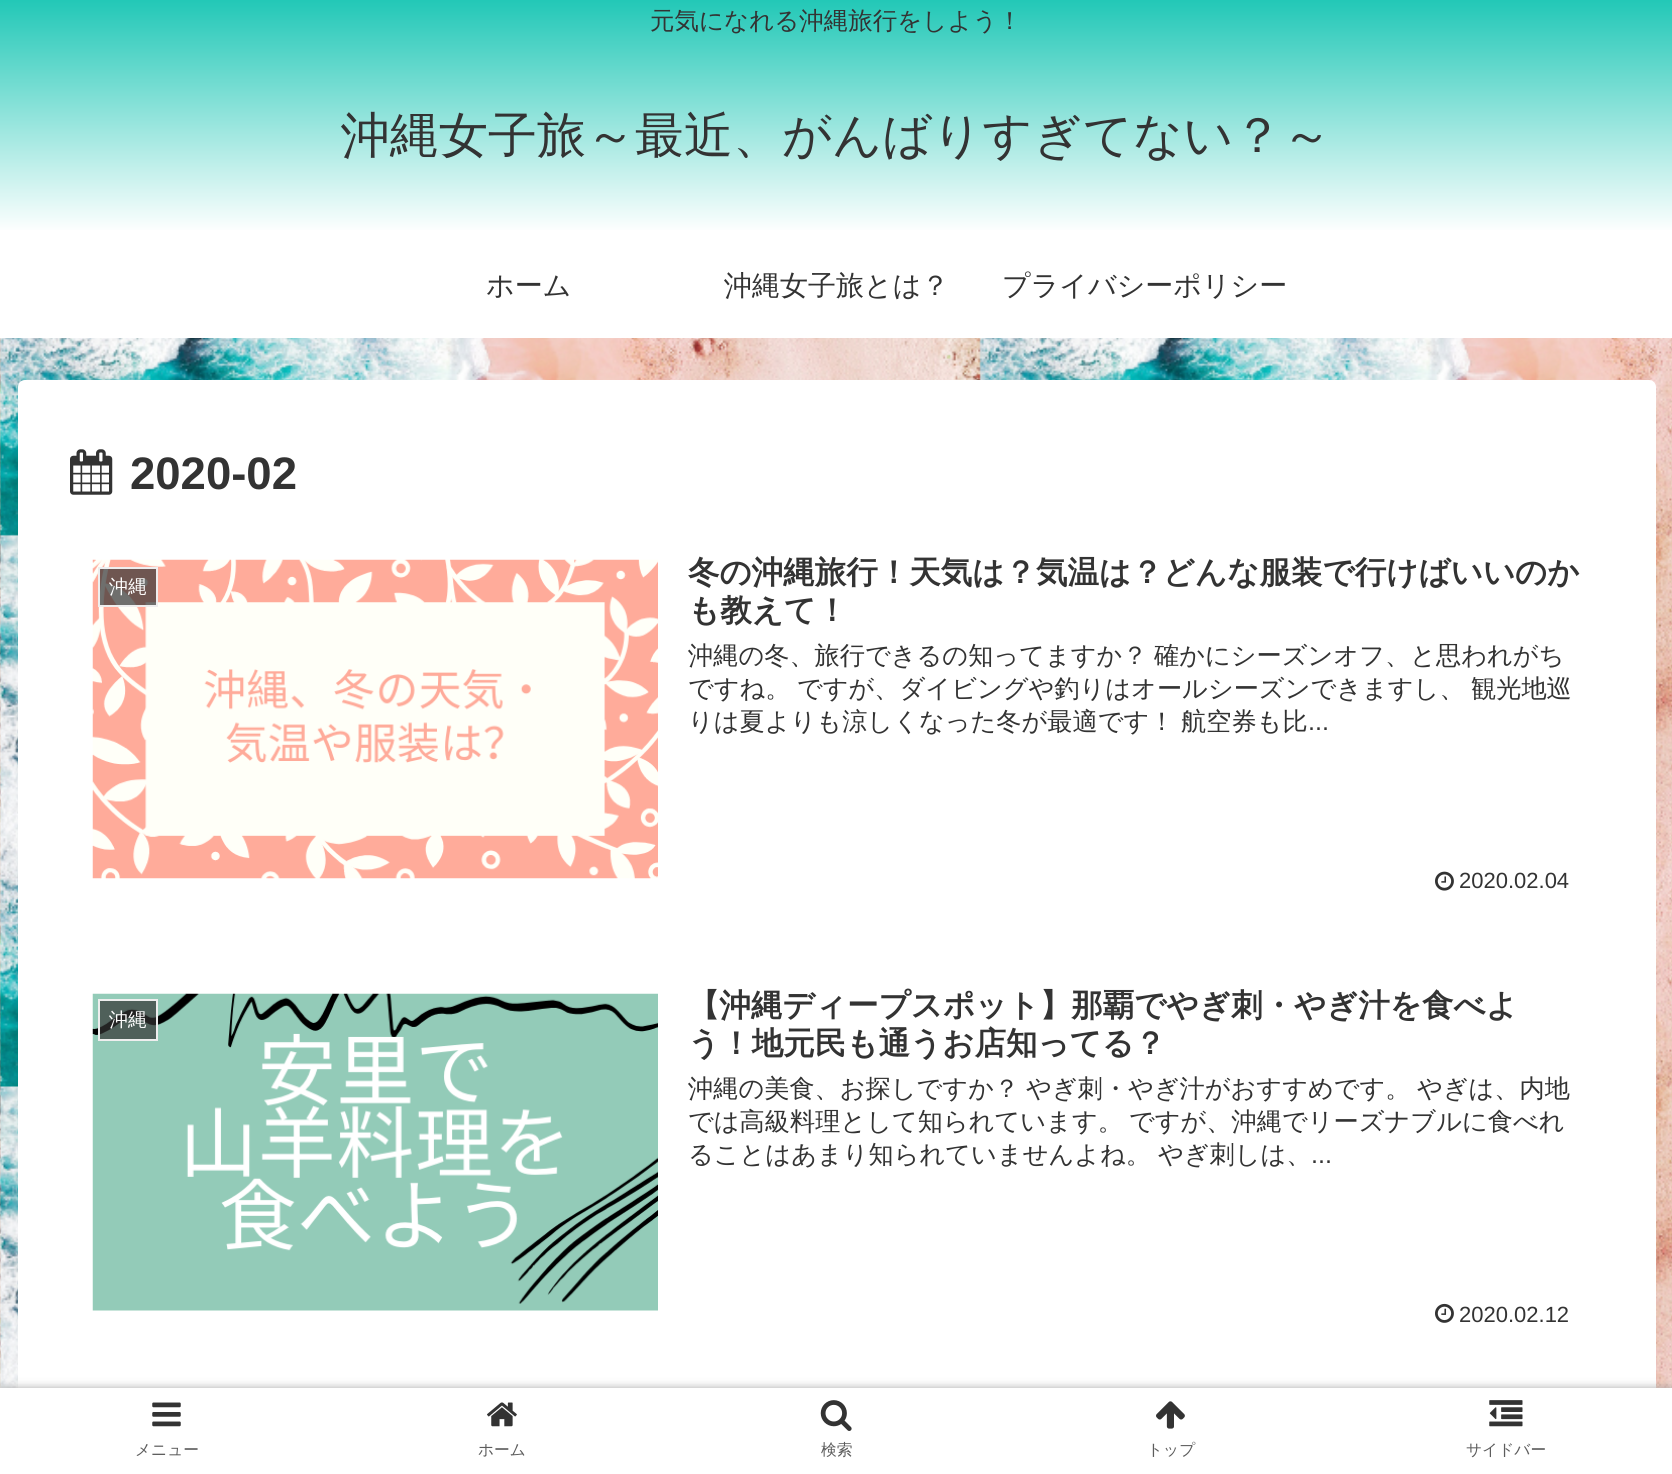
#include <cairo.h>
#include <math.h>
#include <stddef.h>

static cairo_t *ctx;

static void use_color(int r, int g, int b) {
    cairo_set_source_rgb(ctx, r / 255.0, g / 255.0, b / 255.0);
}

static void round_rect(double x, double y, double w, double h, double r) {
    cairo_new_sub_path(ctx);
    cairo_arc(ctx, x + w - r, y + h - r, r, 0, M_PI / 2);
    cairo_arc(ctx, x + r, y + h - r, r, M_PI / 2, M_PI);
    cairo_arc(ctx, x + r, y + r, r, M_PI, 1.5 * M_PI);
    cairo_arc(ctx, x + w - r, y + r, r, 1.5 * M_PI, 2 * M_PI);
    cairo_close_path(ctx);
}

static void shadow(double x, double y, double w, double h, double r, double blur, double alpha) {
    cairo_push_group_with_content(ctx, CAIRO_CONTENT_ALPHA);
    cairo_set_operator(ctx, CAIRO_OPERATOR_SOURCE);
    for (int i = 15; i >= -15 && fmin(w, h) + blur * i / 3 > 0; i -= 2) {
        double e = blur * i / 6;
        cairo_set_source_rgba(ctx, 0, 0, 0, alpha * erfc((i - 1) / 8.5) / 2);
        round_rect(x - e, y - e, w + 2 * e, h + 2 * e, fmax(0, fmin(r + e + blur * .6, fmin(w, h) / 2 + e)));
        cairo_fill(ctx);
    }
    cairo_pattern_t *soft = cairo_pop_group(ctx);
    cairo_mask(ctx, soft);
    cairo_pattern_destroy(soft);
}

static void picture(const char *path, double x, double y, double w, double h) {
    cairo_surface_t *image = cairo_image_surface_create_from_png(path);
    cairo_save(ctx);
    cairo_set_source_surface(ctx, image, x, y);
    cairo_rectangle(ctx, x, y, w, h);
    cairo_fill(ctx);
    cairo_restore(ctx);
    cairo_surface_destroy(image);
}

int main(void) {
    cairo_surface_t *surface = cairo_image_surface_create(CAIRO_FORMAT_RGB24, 1672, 1474);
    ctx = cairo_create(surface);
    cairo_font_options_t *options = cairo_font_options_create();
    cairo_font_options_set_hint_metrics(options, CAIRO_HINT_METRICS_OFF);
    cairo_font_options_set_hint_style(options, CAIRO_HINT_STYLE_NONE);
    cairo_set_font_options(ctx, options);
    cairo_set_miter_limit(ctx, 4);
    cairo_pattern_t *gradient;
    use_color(255, 255, 255);
    cairo_paint(ctx);
    picture("img1.png", 0, 338, 1672, 1050);
    gradient = cairo_pattern_create_linear(837, -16, 837, 233);
    cairo_pattern_add_color_stop_rgba(gradient, 0, 0.075, 0.769, 0.698, 1);
    cairo_pattern_add_color_stop_rgba(gradient, 1, 1, 1, 1, 1);
    cairo_set_source(ctx, gradient);
    cairo_pattern_destroy(gradient);
    cairo_rectangle(ctx, 0, 0, 1672, 230);
    cairo_fill(ctx);
    cairo_select_font_face(ctx, "WenQuanYi Zen Hei Medium", CAIRO_FONT_SLANT_NORMAL, CAIRO_FONT_WEIGHT_NORMAL);
    cairo_set_font_size(ctx, 24.5);
    use_color(51, 51, 51);
    cairo_move_to(ctx, 650, 29);
    cairo_show_text(ctx, "元気になれる沖縄旅行をしよう！");
    cairo_set_font_size(ctx, 49);
    cairo_move_to(ctx, 341, 152);
    cairo_show_text(ctx, "沖縄女子旅～最近、がんばりすぎてない？～");
    cairo_set_font_size(ctx, 28);
    cairo_move_to(ctx, 486, 295);
    cairo_show_text(ctx, "ホーム");
    cairo_move_to(ctx, 724, 295);
    cairo_show_text(ctx, "沖縄女子旅とは？");
    cairo_move_to(ctx, 1002, 295);
    cairo_show_text(ctx, "プライバシーポリシー");
    use_color(255, 255, 255);
    round_rect(18, 380, 1638, 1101, 7);
    cairo_fill(ctx);
    picture("img2.png", 70, 449, 43, 46);
    cairo_select_font_face(ctx, "Liberation Sans", CAIRO_FONT_SLANT_NORMAL, CAIRO_FONT_WEIGHT_BOLD);
    cairo_set_font_size(ctx, 45.5);
    use_color(51, 51, 51);
    cairo_move_to(ctx, 130, 489);
    cairo_show_text(ctx, "2020-02");
    picture("img3.png", 92, 559, 566, 320);
    cairo_set_source_rgba(ctx, 0.2, 0.2, 0.2, 0.7);
    cairo_rectangle(ctx, 99, 568, 58, 38);
    cairo_fill_preserve(ctx);
    use_color(238, 238, 238);
    cairo_stroke(ctx);
    cairo_select_font_face(ctx, "WenQuanYi Zen Hei Medium", CAIRO_FONT_SLANT_NORMAL, CAIRO_FONT_WEIGHT_NORMAL);
    cairo_set_font_size(ctx, 19);
    use_color(255, 255, 255);
    cairo_move_to(ctx, 109, 593);
    cairo_show_text(ctx, "沖縄");
    cairo_select_font_face(ctx, "WenQuanYi Zen Hei", CAIRO_FONT_SLANT_NORMAL, CAIRO_FONT_WEIGHT_BOLD);
    cairo_set_font_size(ctx, 31.5);
    use_color(51, 51, 51);
    cairo_move_to(ctx, 688, 583);
    cairo_show_text(ctx, "冬の沖縄旅行！天気は？気温は？どんな服装で行けばいいのか");
    cairo_move_to(ctx, 688, 621);
    cairo_show_text(ctx, "も教えて！");
    cairo_select_font_face(ctx, "WenQuanYi Zen Hei Medium", CAIRO_FONT_SLANT_NORMAL, CAIRO_FONT_WEIGHT_NORMAL);
    cairo_set_font_size(ctx, 25.2);
    cairo_move_to(ctx, 688, 664);
    cairo_show_text(ctx, "沖縄の冬、旅行できるの知ってますか？");
    cairo_move_to(ctx, 1154, 664);
    cairo_show_text(ctx, "確かにシーズンオフ、と思われがち");
    cairo_move_to(ctx, 688, 697);
    cairo_show_text(ctx, "ですね。");
    cairo_move_to(ctx, 797, 697);
    cairo_show_text(ctx, "ですが、ダイビングや釣りはオールシーズンできますし、");
    cairo_move_to(ctx, 1471, 697);
    cairo_show_text(ctx, "観光地巡");
    cairo_move_to(ctx, 688, 730);
    cairo_show_text(ctx, "りは夏よりも涼しくなった冬が最適です！");
    cairo_move_to(ctx, 1181, 730);
    cairo_show_text(ctx, "航空券も比");
    cairo_select_font_face(ctx, "Liberation Sans", CAIRO_FONT_SLANT_NORMAL, CAIRO_FONT_WEIGHT_NORMAL);
    cairo_move_to(ctx, 1308, 730);
    cairo_show_text(ctx, "...");
    picture("img4.png", 1435, 871, 19, 20);
    cairo_set_font_size(ctx, 22);
    cairo_move_to(ctx, 1459, 888);
    cairo_show_text(ctx, "2020.02.04");
    picture("img5.png", 92, 993, 566, 318);
    cairo_set_source_rgba(ctx, 0.2, 0.2, 0.2, 0.7);
    cairo_rectangle(ctx, 99, 1000, 58, 40);
    cairo_fill_preserve(ctx);
    use_color(238, 238, 238);
    cairo_stroke(ctx);
    cairo_select_font_face(ctx, "WenQuanYi Zen Hei Medium", CAIRO_FONT_SLANT_NORMAL, CAIRO_FONT_WEIGHT_NORMAL);
    cairo_set_font_size(ctx, 19);
    use_color(255, 255, 255);
    cairo_move_to(ctx, 109, 1026);
    cairo_show_text(ctx, "沖縄");
    cairo_select_font_face(ctx, "WenQuanYi Zen Hei", CAIRO_FONT_SLANT_NORMAL, CAIRO_FONT_WEIGHT_BOLD);
    cairo_set_font_size(ctx, 31.5);
    use_color(51, 51, 51);
    cairo_move_to(ctx, 688, 1016);
    cairo_show_text(ctx, "【沖縄ディープスポット】那覇でやぎ刺・やぎ汁を食べよ");
    cairo_move_to(ctx, 688, 1054);
    cairo_show_text(ctx, "う！地元民も通うお店知ってる？");
    cairo_select_font_face(ctx, "WenQuanYi Zen Hei Medium", CAIRO_FONT_SLANT_NORMAL, CAIRO_FONT_WEIGHT_NORMAL);
    cairo_set_font_size(ctx, 25.2);
    cairo_move_to(ctx, 688, 1097);
    cairo_show_text(ctx, "沖縄の美食、お探しですか？");
    cairo_move_to(ctx, 1026, 1097);
    cairo_show_text(ctx, "やぎ刺・やぎ汁がおすすめです。");
    cairo_move_to(ctx, 1417, 1097);
    cairo_show_text(ctx, "やぎは、内地");
    cairo_move_to(ctx, 688, 1130);
    cairo_show_text(ctx, "では高級料理として知られています。");
    cairo_move_to(ctx, 1129, 1130);
    cairo_show_text(ctx, "ですが、沖縄でリーズナブルに食べれ");
    cairo_move_to(ctx, 688, 1163);
    cairo_show_text(ctx, "ることはあまり知られていませんよね。");
    cairo_move_to(ctx, 1158, 1163);
    cairo_show_text(ctx, "やぎ刺しは、");
    cairo_select_font_face(ctx, "Liberation Sans", CAIRO_FONT_SLANT_NORMAL, CAIRO_FONT_WEIGHT_NORMAL);
    cairo_move_to(ctx, 1311, 1163);
    cairo_show_text(ctx, "...");
    picture("img6.png", 1435, 1303, 19, 20);
    cairo_set_font_size(ctx, 22);
    cairo_move_to(ctx, 1459, 1322);
    cairo_show_text(ctx, "2020.02.12");
    use_color(169, 169, 169);
    shadow(0, 1388, 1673, 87, 0, 4.5, 1);
    use_color(255, 255, 255);
    cairo_rectangle(ctx, 0, 1388, 1672, 86);
    cairo_fill(ctx);
    picture("img7.png", 152, 1402, 29, 25);
    cairo_select_font_face(ctx, "WenQuanYi Zen Hei Medium", CAIRO_FONT_SLANT_NORMAL, CAIRO_FONT_WEIGHT_NORMAL);
    cairo_set_font_size(ctx, 15.75);
    use_color(92, 92, 92);
    cairo_move_to(ctx, 135, 1455);
    cairo_show_text(ctx, "メニュー");
    picture("img8.png", 487, 1402, 30, 25);
    cairo_move_to(ctx, 478, 1455);
    cairo_show_text(ctx, "ホーム");
    picture("img9.png", 820, 1400, 32, 31);
    cairo_move_to(ctx, 821, 1455);
    cairo_show_text(ctx, "検索");
    picture("img10.png", 1156, 1401, 29, 28);
    cairo_move_to(ctx, 1147, 1455);
    cairo_show_text(ctx, "トップ");
    picture("img11.png", 1489, 1400, 34, 27);
    cairo_move_to(ctx, 1466, 1455);
    cairo_show_text(ctx, "サイドバー");
    cairo_surface_write_to_png(surface, "result.png");
    cairo_font_options_destroy(options);
    cairo_destroy(ctx);
    cairo_surface_destroy(surface);
    return 0;
}
